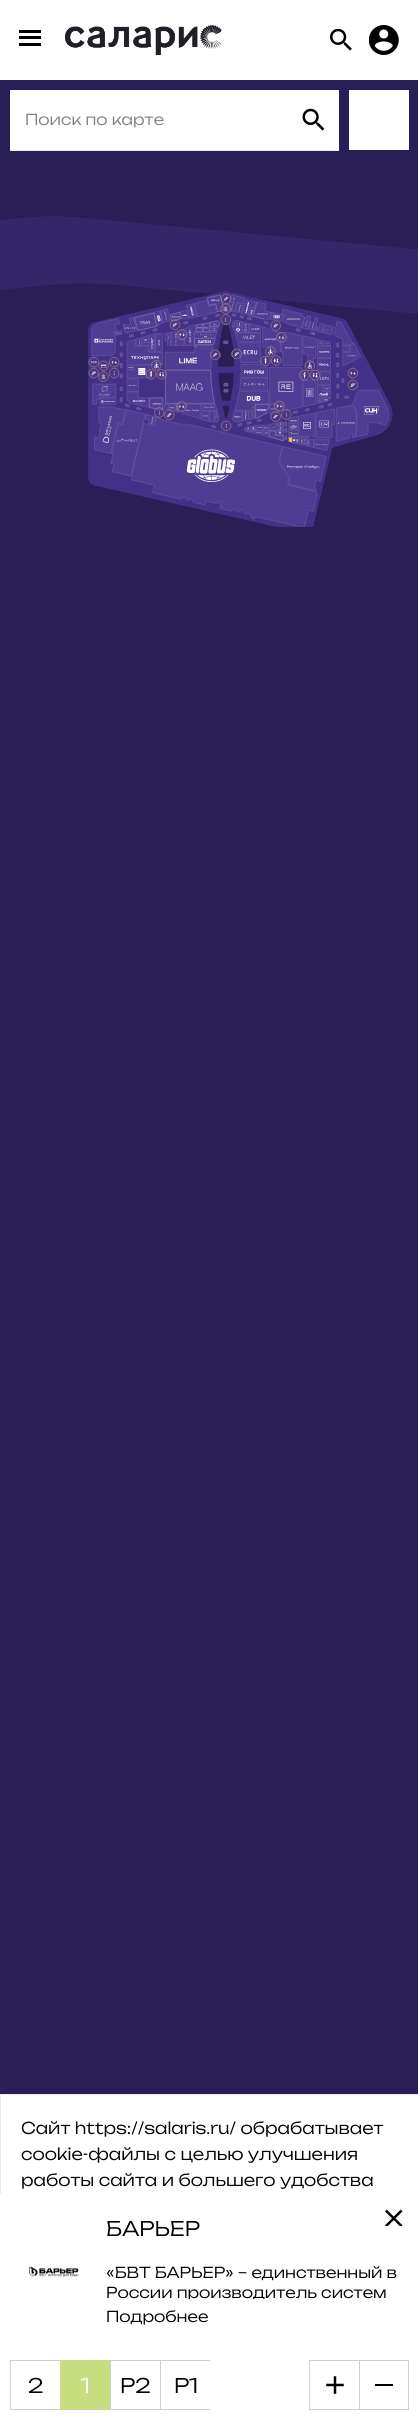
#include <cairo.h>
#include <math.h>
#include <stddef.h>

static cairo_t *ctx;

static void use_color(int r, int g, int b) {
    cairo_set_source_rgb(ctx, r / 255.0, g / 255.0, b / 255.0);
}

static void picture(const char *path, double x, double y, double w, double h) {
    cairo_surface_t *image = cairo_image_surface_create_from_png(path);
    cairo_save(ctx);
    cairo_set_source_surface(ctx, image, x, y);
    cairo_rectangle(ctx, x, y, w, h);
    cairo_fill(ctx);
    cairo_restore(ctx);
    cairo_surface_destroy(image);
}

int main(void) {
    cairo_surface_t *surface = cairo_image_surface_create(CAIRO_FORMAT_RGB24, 418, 2419);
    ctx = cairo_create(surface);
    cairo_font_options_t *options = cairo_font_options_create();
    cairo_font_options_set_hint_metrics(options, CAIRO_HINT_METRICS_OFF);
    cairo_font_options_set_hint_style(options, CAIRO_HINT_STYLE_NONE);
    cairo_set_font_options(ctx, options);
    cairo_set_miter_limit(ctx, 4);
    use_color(255, 255, 255);
    cairo_paint(ctx);
    use_color(0, 0, 0);
    cairo_rectangle(ctx, 19, 30, 22, 3);
    cairo_fill(ctx);
    cairo_rectangle(ctx, 19, 36, 22, 3);
    cairo_fill(ctx);
    cairo_rectangle(ctx, 19, 43, 22, 3);
    cairo_fill(ctx);
    picture("img1.png", 65, 25, 157, 30);
    picture("img2.png", 330, 29, 22, 22);
    picture("img3.png", 369, 25, 30, 30);
    picture("img4.png", 0, 80, 418, 2014);
    use_color(234, 234, 233);
    cairo_rectangle(ctx, 10, 150, 329, 1);
    cairo_fill(ctx);
    use_color(255, 255, 255);
    cairo_rectangle(ctx, 10, 90, 329, 60);
    cairo_fill(ctx);
    cairo_select_font_face(ctx, "Unbounded Light", CAIRO_FONT_SLANT_NORMAL, CAIRO_FONT_WEIGHT_NORMAL);
    cairo_set_font_size(ctx, 15);
    use_color(128, 128, 128);
    cairo_move_to(ctx, 25, 125);
    cairo_show_text(ctx, "Поиск по карте");
    picture("img5.png", 302, 108, 23, 23);
    use_color(255, 255, 255);
    cairo_rectangle(ctx, 349, 90, 60, 60);
    cairo_fill(ctx);
    cairo_rectangle(ctx, 0.5, 2094.5, 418, 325);
    use_color(234, 234, 233);
    cairo_set_line_width(ctx, 1);
    cairo_stroke(ctx);
    picture("img6.png", 385, 2209, 18, 17);
    picture("img7.png", 29, 2266, 50, 11);
    cairo_set_font_size(ctx, 20);
    use_color(0, 0, 0);
    cairo_move_to(ctx, 106, 2236);
    cairo_show_text(ctx, "БАРЬЕР");
    cairo_set_font_size(ctx, 15);
    cairo_move_to(ctx, 106, 2278);
    cairo_show_text(ctx, "«БВТ БАРЬЕР» – единственный в");
    cairo_save(ctx);
    cairo_rectangle(ctx, 106, 2264, 293, 35);
    cairo_clip(ctx);
    cairo_move_to(ctx, 106, 2298);
    cairo_show_text(ctx, "России производитель систем");
    cairo_restore(ctx);
    cairo_move_to(ctx, 106, 2322);
    cairo_show_text(ctx, "Подробнее");
    picture("img8.png", 88, 291, 305, 236);
    use_color(255, 255, 255);
    cairo_rectangle(ctx, 0, 2194, 1, 225);
    cairo_fill(ctx);
    use_color(208, 208, 208);
    cairo_rectangle(ctx, 10, 2360, 50, 1);
    cairo_fill(ctx);
    cairo_rectangle(ctx, 10, 2409, 50, 1);
    cairo_fill(ctx);
    cairo_rectangle(ctx, 10, 2360, 1, 50);
    cairo_fill(ctx);
    cairo_set_font_size(ctx, 20);
    use_color(0, 0, 0);
    cairo_move_to(ctx, 28, 2393);
    cairo_show_text(ctx, "2");
    use_color(200, 222, 129);
    cairo_rectangle(ctx, 60, 2360, 50, 50);
    cairo_fill(ctx);
    use_color(255, 255, 255);
    cairo_move_to(ctx, 81, 2393);
    cairo_show_text(ctx, "1");
    use_color(208, 208, 208);
    cairo_rectangle(ctx, 110, 2360, 100, 1);
    cairo_fill(ctx);
    cairo_rectangle(ctx, 110, 2409, 100, 1);
    cairo_fill(ctx);
    cairo_rectangle(ctx, 110, 2360, 1, 50);
    cairo_fill(ctx);
    use_color(0, 0, 0);
    cairo_move_to(ctx, 120, 2393);
    cairo_show_text(ctx, "Р2");
    use_color(208, 208, 208);
    cairo_rectangle(ctx, 160, 2360, 1, 50);
    cairo_fill(ctx);
    use_color(0, 0, 0);
    cairo_move_to(ctx, 174, 2393);
    cairo_show_text(ctx, "Р1");
    use_color(208, 208, 208);
    cairo_rectangle(ctx, 309, 2360, 50, 1);
    cairo_fill(ctx);
    cairo_rectangle(ctx, 309, 2409, 50, 1);
    cairo_fill(ctx);
    cairo_rectangle(ctx, 309, 2360, 1, 50);
    cairo_fill(ctx);
    picture("img9.png", 326, 2376, 18, 18);
    cairo_rectangle(ctx, 359.5, 2360.5, 49, 49);
    cairo_stroke(ctx);
    use_color(0, 0, 0);
    cairo_rectangle(ctx, 375, 2384, 18, 2);
    cairo_fill(ctx);
    cairo_set_font_size(ctx, 16.25);
    cairo_move_to(ctx, 21, 2134);
    cairo_show_text(ctx, "Сайт https://salaris.ru/ обрабатывает");
    cairo_move_to(ctx, 21, 2160);
    cairo_show_text(ctx, "cookie-файлы с целью улучшения");
    cairo_move_to(ctx, 21, 2186);
    cairo_show_text(ctx, "работы сайта и большего удобства");
    cairo_surface_write_to_png(surface, "result.png");
    cairo_font_options_destroy(options);
    cairo_destroy(ctx);
    cairo_surface_destroy(surface);
    return 0;
}
